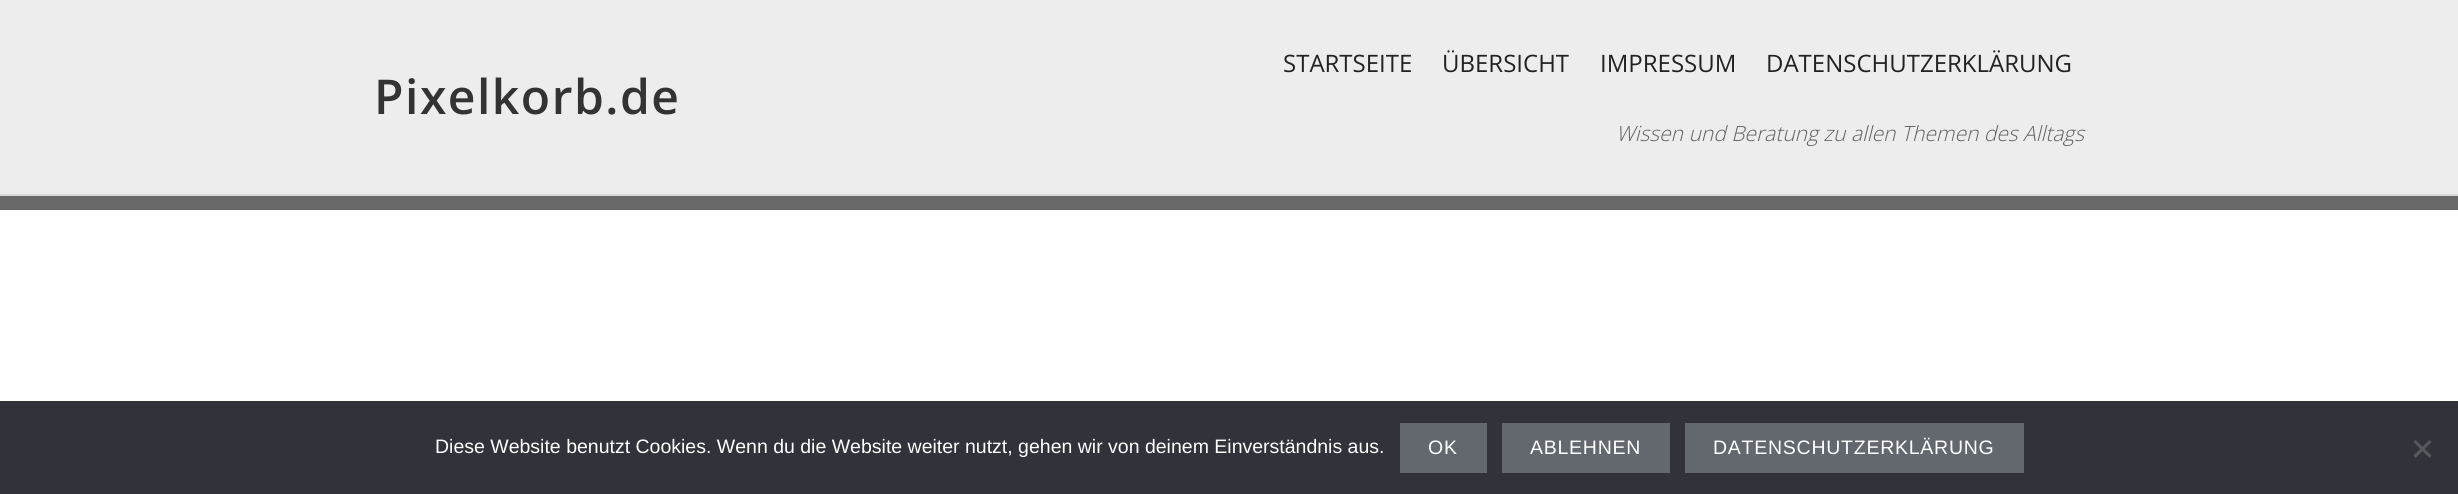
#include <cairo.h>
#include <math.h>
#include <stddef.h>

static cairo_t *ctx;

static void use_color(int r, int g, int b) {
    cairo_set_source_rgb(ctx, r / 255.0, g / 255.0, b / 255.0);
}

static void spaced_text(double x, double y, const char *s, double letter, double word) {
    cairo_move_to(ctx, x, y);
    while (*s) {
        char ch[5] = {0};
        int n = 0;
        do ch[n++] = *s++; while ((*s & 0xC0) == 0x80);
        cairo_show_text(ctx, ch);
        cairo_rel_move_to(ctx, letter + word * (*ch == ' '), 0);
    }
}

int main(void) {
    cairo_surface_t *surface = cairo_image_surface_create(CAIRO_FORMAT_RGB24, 2458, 494);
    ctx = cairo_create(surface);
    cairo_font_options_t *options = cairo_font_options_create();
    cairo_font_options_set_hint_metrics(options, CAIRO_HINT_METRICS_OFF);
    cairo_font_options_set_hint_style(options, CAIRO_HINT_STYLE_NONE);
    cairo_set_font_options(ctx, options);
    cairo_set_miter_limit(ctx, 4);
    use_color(104, 104, 104);
    cairo_paint(ctx);
    use_color(237, 237, 237);
    cairo_rectangle(ctx, 0, 0, 2458, 194);
    cairo_fill(ctx);
    use_color(217, 217, 217);
    cairo_rectangle(ctx, 0, 194, 2458, 2);
    cairo_fill(ctx);
    cairo_select_font_face(ctx, "Open Sans SemiBold", CAIRO_FONT_SLANT_NORMAL, CAIRO_FONT_WEIGHT_NORMAL);
    cairo_set_font_size(ctx, 48);
    use_color(51, 51, 51);
    spaced_text(374, 114, "Pixelkorb.de", 1.5, 0);
    cairo_select_font_face(ctx, "Open Sans", CAIRO_FONT_SLANT_NORMAL, CAIRO_FONT_WEIGHT_NORMAL);
    cairo_set_font_size(ctx, 24);
    use_color(34, 34, 34);
    cairo_move_to(ctx, 1283, 72);
    cairo_show_text(ctx, "STARTSEITE");
    cairo_move_to(ctx, 1442, 72);
    cairo_show_text(ctx, "ÜBERSICHT");
    cairo_move_to(ctx, 1600, 72);
    cairo_show_text(ctx, "IMPRESSUM");
    cairo_move_to(ctx, 1766, 72);
    cairo_show_text(ctx, "DATENSCHUTZERKLÄRUNG");
    cairo_select_font_face(ctx, "Open Sans Light", CAIRO_FONT_SLANT_ITALIC, CAIRO_FONT_WEIGHT_NORMAL);
    cairo_set_font_size(ctx, 21);
    use_color(97, 97, 97);
    cairo_move_to(ctx, 1616, 141);
    cairo_show_text(ctx, "Wissen und Beratung zu allen Themen des Alltags");
    use_color(255, 255, 255);
    cairo_rectangle(ctx, 0, 210, 2458, 191);
    cairo_fill(ctx);
    use_color(50, 50, 58);
    cairo_rectangle(ctx, 0, 401, 2458, 93);
    cairo_fill(ctx);
    cairo_select_font_face(ctx, "Liberation Sans", CAIRO_FONT_SLANT_NORMAL, CAIRO_FONT_WEIGHT_NORMAL);
    cairo_set_font_size(ctx, 19.5);
    use_color(255, 255, 255);
    cairo_move_to(ctx, 435, 453);
    cairo_show_text(ctx, "Diese Website benutzt Cookies. Wenn du die Website weiter nutzt, gehen wir von deinem Einverständnis aus.");
    use_color(98, 104, 110);
    cairo_rectangle(ctx, 1400, 423, 87, 50);
    cairo_fill(ctx);
    use_color(255, 255, 255);
    spaced_text(1428, 454, "OK", 0.75, 0);
    use_color(98, 104, 110);
    cairo_rectangle(ctx, 1502, 423, 168, 50);
    cairo_fill(ctx);
    use_color(255, 255, 255);
    spaced_text(1530, 454, "ABLEHNEN", 0.75, 0);
    use_color(98, 104, 110);
    cairo_rectangle(ctx, 1685, 423, 339, 50);
    cairo_fill(ctx);
    use_color(255, 255, 255);
    spaced_text(1713, 454, "DATENSCHUTZERKLÄRUNG", 0.75, 0);
    use_color(89, 89, 93);
    cairo_new_path(ctx);
    cairo_move_to(ctx, 2429.5, 440);
    cairo_line_to(ctx, 2431.5, 442);
    cairo_line_to(ctx, 2415.5, 458);
    cairo_line_to(ctx, 2413.5, 455.5);
    cairo_close_path(ctx);
    cairo_fill(ctx);
    cairo_new_path(ctx);
    cairo_move_to(ctx, 2413.5, 442);
    cairo_line_to(ctx, 2415.5, 440);
    cairo_line_to(ctx, 2431.5, 455.5);
    cairo_line_to(ctx, 2429.5, 458);
    cairo_close_path(ctx);
    cairo_fill(ctx);
    cairo_surface_write_to_png(surface, "result.png");
    cairo_font_options_destroy(options);
    cairo_destroy(ctx);
    cairo_surface_destroy(surface);
    return 0;
}
